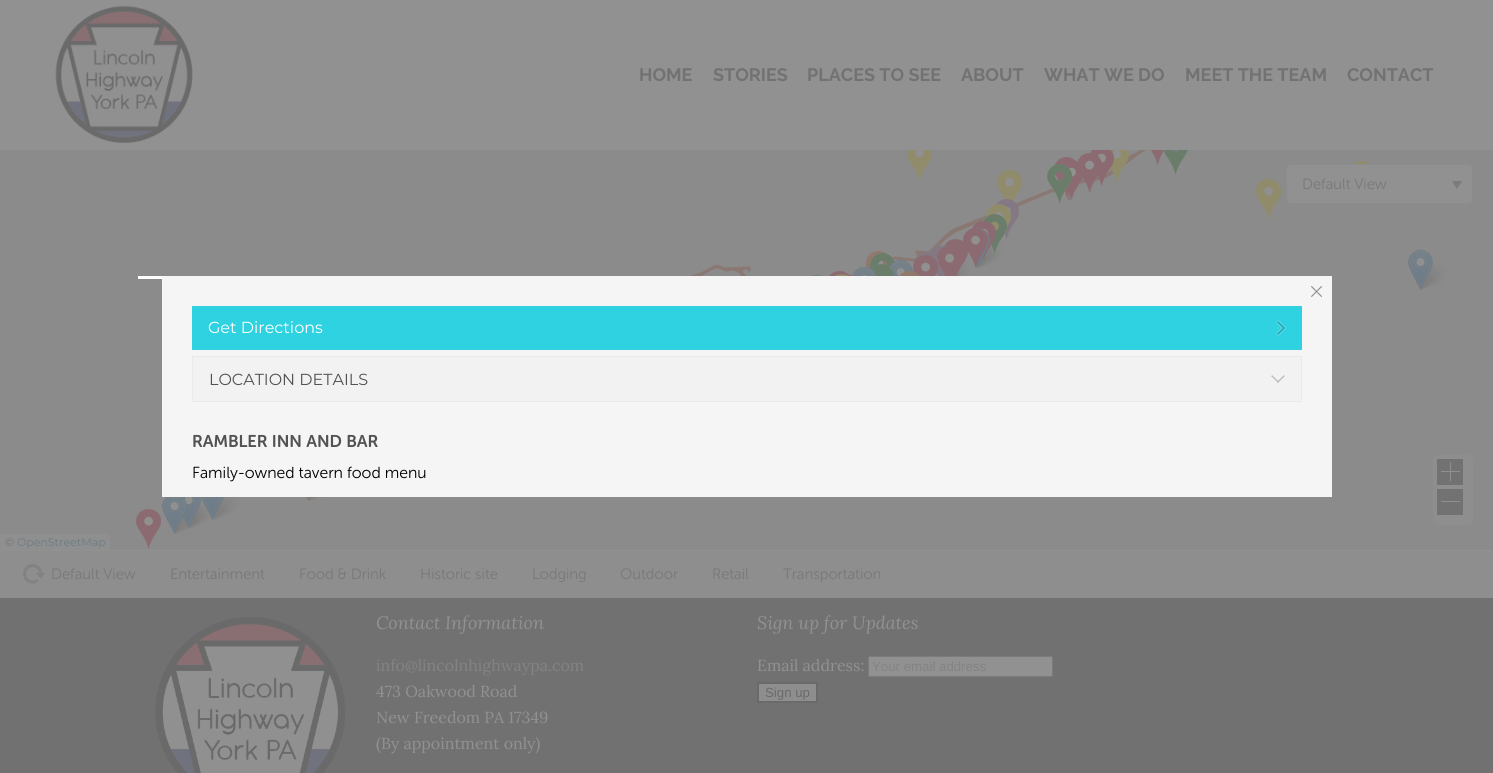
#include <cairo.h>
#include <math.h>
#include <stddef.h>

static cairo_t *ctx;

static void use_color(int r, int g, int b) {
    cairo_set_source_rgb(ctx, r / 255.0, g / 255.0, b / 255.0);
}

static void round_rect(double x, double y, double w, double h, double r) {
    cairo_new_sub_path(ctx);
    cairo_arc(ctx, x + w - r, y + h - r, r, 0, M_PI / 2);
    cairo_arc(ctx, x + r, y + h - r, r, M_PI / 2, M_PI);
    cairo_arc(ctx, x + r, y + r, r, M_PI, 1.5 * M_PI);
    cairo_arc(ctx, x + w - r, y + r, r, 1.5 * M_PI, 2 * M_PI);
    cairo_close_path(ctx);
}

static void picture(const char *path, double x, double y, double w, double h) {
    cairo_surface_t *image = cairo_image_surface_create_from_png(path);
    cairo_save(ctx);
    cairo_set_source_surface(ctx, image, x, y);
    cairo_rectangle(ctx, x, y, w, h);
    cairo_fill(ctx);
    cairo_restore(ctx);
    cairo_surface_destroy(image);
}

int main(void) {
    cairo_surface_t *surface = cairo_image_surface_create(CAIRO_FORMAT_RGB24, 1493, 773);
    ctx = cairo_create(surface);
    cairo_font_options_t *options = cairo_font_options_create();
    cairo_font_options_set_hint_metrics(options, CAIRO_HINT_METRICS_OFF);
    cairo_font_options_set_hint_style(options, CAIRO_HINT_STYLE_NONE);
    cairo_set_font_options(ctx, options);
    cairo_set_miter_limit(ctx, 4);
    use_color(145, 145, 145);
    cairo_paint(ctx);
    picture("img1.png", 55, 6, 138, 137);
    cairo_select_font_face(ctx, "Raleway", CAIRO_FONT_SLANT_NORMAL, CAIRO_FONT_WEIGHT_BOLD);
    cairo_set_font_size(ctx, 18);
    use_color(114, 114, 114);
    cairo_move_to(ctx, 639, 81);
    cairo_show_text(ctx, "HOME");
    cairo_move_to(ctx, 713, 81);
    cairo_show_text(ctx, "STORIES");
    cairo_move_to(ctx, 807, 81);
    cairo_show_text(ctx, "PLACES TO SEE");
    cairo_move_to(ctx, 961, 81);
    cairo_show_text(ctx, "ABOUT");
    cairo_move_to(ctx, 1044, 81);
    cairo_show_text(ctx, "WHAT WE DO");
    cairo_move_to(ctx, 1185, 81);
    cairo_show_text(ctx, "MEET THE TEAM");
    cairo_move_to(ctx, 1347, 81);
    cairo_show_text(ctx, "CONTACT");
    use_color(139, 139, 139);
    cairo_rectangle(ctx, 0, 150, 1493, 400);
    cairo_fill(ctx);
    use_color(145, 145, 145);
    round_rect(1286.5, 164.5, 186, 39, 4.5);
    cairo_fill_preserve(ctx);
    use_color(140, 140, 141);
    cairo_set_line_width(ctx, 1);
    cairo_stroke(ctx);
    cairo_select_font_face(ctx, "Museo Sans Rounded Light", CAIRO_FONT_SLANT_NORMAL, CAIRO_FONT_WEIGHT_NORMAL);
    cairo_set_font_size(ctx, 15);
    use_color(120, 120, 122);
    cairo_move_to(ctx, 1302, 189);
    cairo_show_text(ctx, "Default View");
    use_color(123, 123, 123);
    cairo_new_path(ctx);
    cairo_move_to(ctx, 1452, 181);
    cairo_line_to(ctx, 1462, 181);
    cairo_line_to(ctx, 1457, 189);
    cairo_close_path(ctx);
    cairo_fill(ctx);
    use_color(142, 142, 142);
    round_rect(1433, 455, 40, 70, 5);
    cairo_fill(ctx);
    picture("img2.png", 1437, 459, 26, 26);
    picture("img3.png", 1437, 489, 26, 26);
    use_color(143, 143, 143);
    cairo_rectangle(ctx, 0, 534, 110, 16);
    cairo_fill(ctx);
    cairo_select_font_face(ctx, "Montserrat Thin", CAIRO_FONT_SLANT_NORMAL, CAIRO_FONT_WEIGHT_NORMAL);
    cairo_set_font_size(ctx, 11);
    use_color(114, 114, 114);
    cairo_move_to(ctx, 5, 546);
    cairo_show_text(ctx, "©");
    use_color(106, 124, 131);
    cairo_move_to(ctx, 17, 546);
    cairo_show_text(ctx, "OpenStreetMap");
    picture("img57.png", 690, 150, 457, 126);
    picture("img4.png", 907, 150, 25, 31);
    picture("img6.png", 1110, 150, 19, 32);
    picture("img5.png", 1089, 150, 25, 36);
    picture("img7.png", 1150, 150, 14, 15);
    picture("img48.png", 1174, 150, 19, 5);
    picture("img10.png", 1174, 150, 4, 2);
    picture("img9.png", 1172, 150, 4, 2);
    picture("img8.png", 1163, 150, 25, 25);
    picture("img11.png", 1054, 157, 23, 40);
    picture("img12.png", 1077, 153, 25, 40);
    picture("img13.png", 1061, 160, 22, 40);
    picture("img14.png", 1353, 161, 17, 3);
    picture("img15.png", 997, 170, 25, 31);
    picture("img16.png", 1047, 164, 25, 40);
    picture("img17.png", 1256, 179, 25, 40);
    picture("img18.png", 995, 199, 24, 40);
    picture("img51.png", 976, 243, 28, 25);
    picture("img19.png", 986, 204, 25, 40);
    picture("img20.png", 982, 214, 25, 40);
    picture("img21.png", 971, 221, 25, 40);
    picture("img50.png", 953, 260, 18, 16);
    picture("img22.png", 968, 227, 22, 41);
    picture("img24.png", 963, 228, 25, 40);
    picture("img23.png", 944, 239, 24, 37);
    picture("img25.png", 944, 244, 23, 32);
    picture("img28.png", 940, 245, 19, 6);
    picture("img26.png", 939, 245, 11, 31);
    picture("img27.png", 930, 246, 17, 30);
    picture("img29.png", 866, 251, 22, 19);
    picture("img31.png", 937, 246, 23, 30);
    picture("img49.png", 914, 272, 1, 1);
    picture("img30.png", 914, 252, 25, 23);
    picture("img52.png", 1418, 262, 29, 28);
    picture("img32.png", 1408, 249, 25, 41);
    picture("img33.png", 870, 253, 25, 23);
    picture("img34.png", 889, 259, 24, 17);
    picture("img35.png", 913, 255, 25, 21);
    picture("img36.png", 811, 274, 11, 2);
    picture("img37.png", 829, 271, 21, 5);
    picture("img39.png", 870, 264, 24, 12);
    picture("img38.png", 852, 266, 25, 10);
    picture("img40.png", 899, 271, 21, 5);
    picture("img41.png", 834, 274, 15, 2);
    picture("img53.png", 210, 497, 29, 23);
    picture("img56.png", 172, 510, 29, 24);
    picture("img55.png", 186, 500, 26, 28);
    picture("img43.png", 181, 497, 20, 31);
    picture("img42.png", 162, 497, 25, 37);
    picture("img44.png", 201, 497, 23, 23);
    picture("img54.png", 307, 497, 17, 4);
    picture("img45.png", 306, 497, 5, 4);
    picture("img46.png", 307, 497, 3, 4);
    picture("img47.png", 136, 509, 25, 40);
    use_color(142, 142, 142);
    cairo_rectangle(ctx, 0, 551, 1493, 47);
    cairo_fill(ctx);
    picture("img58.png", 22, 563, 24, 22);
    cairo_select_font_face(ctx, "Museo Sans Rounded Light", CAIRO_FONT_SLANT_NORMAL, CAIRO_FONT_WEIGHT_NORMAL);
    cairo_set_font_size(ctx, 15);
    use_color(120, 120, 122);
    cairo_move_to(ctx, 51, 579);
    cairo_show_text(ctx, "Default View");
    cairo_move_to(ctx, 170, 579);
    cairo_show_text(ctx, "Entertainment");
    cairo_move_to(ctx, 299, 579);
    cairo_show_text(ctx, "Food & Drink");
    cairo_move_to(ctx, 420, 579);
    cairo_show_text(ctx, "Historic site");
    cairo_move_to(ctx, 532, 579);
    cairo_show_text(ctx, "Lodging");
    cairo_move_to(ctx, 620, 579);
    cairo_show_text(ctx, "Outdoor");
    cairo_move_to(ctx, 712, 579);
    cairo_show_text(ctx, "Retail");
    cairo_move_to(ctx, 783, 579);
    cairo_show_text(ctx, "Transportation");
    use_color(113, 113, 113);
    cairo_rectangle(ctx, 0, 598, 1493, 175);
    cairo_fill(ctx);
    picture("img59.png", 155, 617, 191, 156);
    cairo_select_font_face(ctx, "Lora", CAIRO_FONT_SLANT_ITALIC, CAIRO_FONT_WEIGHT_NORMAL);
    cairo_set_font_size(ctx, 18);
    use_color(145, 145, 145);
    cairo_move_to(ctx, 376, 629);
    cairo_show_text(ctx, "Contact Information");
    cairo_select_font_face(ctx, "Lora", CAIRO_FONT_SLANT_NORMAL, CAIRO_FONT_WEIGHT_NORMAL);
    cairo_set_font_size(ctx, 16);
    use_color(131, 131, 131);
    cairo_move_to(ctx, 376, 671);
    cairo_show_text(ctx, "info@lincolnhighwaypa.com");
    use_color(145, 145, 145);
    cairo_move_to(ctx, 376, 697);
    cairo_show_text(ctx, "473 Oakwood Road");
    cairo_move_to(ctx, 376, 723);
    cairo_show_text(ctx, "New Freedom PA 17349");
    cairo_move_to(ctx, 376, 749);
    cairo_show_text(ctx, "(By appointment only)");
    cairo_select_font_face(ctx, "Lora", CAIRO_FONT_SLANT_ITALIC, CAIRO_FONT_WEIGHT_NORMAL);
    cairo_set_font_size(ctx, 18);
    cairo_move_to(ctx, 757, 629);
    cairo_show_text(ctx, "Sign up for Updates");
    cairo_select_font_face(ctx, "Lora", CAIRO_FONT_SLANT_NORMAL, CAIRO_FONT_WEIGHT_NORMAL);
    cairo_set_font_size(ctx, 16);
    cairo_move_to(ctx, 757, 671);
    cairo_show_text(ctx, "Email address:");
    round_rect(868.5, 656.5, 184, 20, 1.5);
    cairo_fill_preserve(ctx);
    use_color(124, 124, 124);
    cairo_stroke(ctx);
    cairo_select_font_face(ctx, "Liberation Sans", CAIRO_FONT_SLANT_NORMAL, CAIRO_FONT_WEIGHT_NORMAL);
    cairo_set_font_size(ctx, 13.25);
    use_color(131, 131, 131);
    cairo_move_to(ctx, 872, 671);
    cairo_show_text(ctx, "Your email address");
    use_color(142, 142, 142);
    cairo_rectangle(ctx, 758, 683, 59, 19);
    cairo_fill_preserve(ctx);
    use_color(106, 106, 106);
    cairo_set_line_width(ctx, 2);
    cairo_stroke(ctx);
    cairo_move_to(ctx, 765, 697);
    cairo_show_text(ctx, "Sign up");
    use_color(245, 245, 245);
    cairo_rectangle(ctx, 162, 276, 1170, 221);
    cairo_fill(ctx);
    use_color(255, 255, 255);
    cairo_rectangle(ctx, 138, 276, 24, 3);
    cairo_fill(ctx);
    picture("img60.png", 1311, 286, 11, 11);
    use_color(46, 210, 225);
    cairo_rectangle(ctx, 192, 306, 1110, 44);
    cairo_fill(ctx);
    cairo_select_font_face(ctx, "Montserrat Thin", CAIRO_FONT_SLANT_NORMAL, CAIRO_FONT_WEIGHT_NORMAL);
    cairo_set_font_size(ctx, 16);
    use_color(255, 255, 255);
    cairo_move_to(ctx, 208, 333);
    cairo_show_text(ctx, "Get Directions");
    picture("img61.png", 1276, 320, 10, 16);
    use_color(242, 242, 242);
    cairo_rectangle(ctx, 192.5, 356.5, 1109, 45);
    cairo_fill_preserve(ctx);
    use_color(234, 234, 234);
    cairo_set_line_width(ctx, 1);
    cairo_stroke(ctx);
    use_color(82, 82, 82);
    cairo_move_to(ctx, 209, 385);
    cairo_show_text(ctx, "LOCATION DETAILS");
    picture("img62.png", 1271, 375, 14, 8);
    cairo_select_font_face(ctx, "Museo Sans Rounded SemiBold", CAIRO_FONT_SLANT_NORMAL, CAIRO_FONT_WEIGHT_NORMAL);
    cairo_set_font_size(ctx, 17);
    cairo_move_to(ctx, 192, 447);
    cairo_show_text(ctx, "RAMBLER INN AND BAR");
    cairo_select_font_face(ctx, "Museo Sans Rounded Light", CAIRO_FONT_SLANT_NORMAL, CAIRO_FONT_WEIGHT_NORMAL);
    cairo_set_font_size(ctx, 16);
    use_color(0, 0, 0);
    cairo_move_to(ctx, 192, 478);
    cairo_show_text(ctx, "Family-owned tavern food menu");
    cairo_surface_write_to_png(surface, "result.png");
    cairo_font_options_destroy(options);
    cairo_destroy(ctx);
    cairo_surface_destroy(surface);
    return 0;
}
